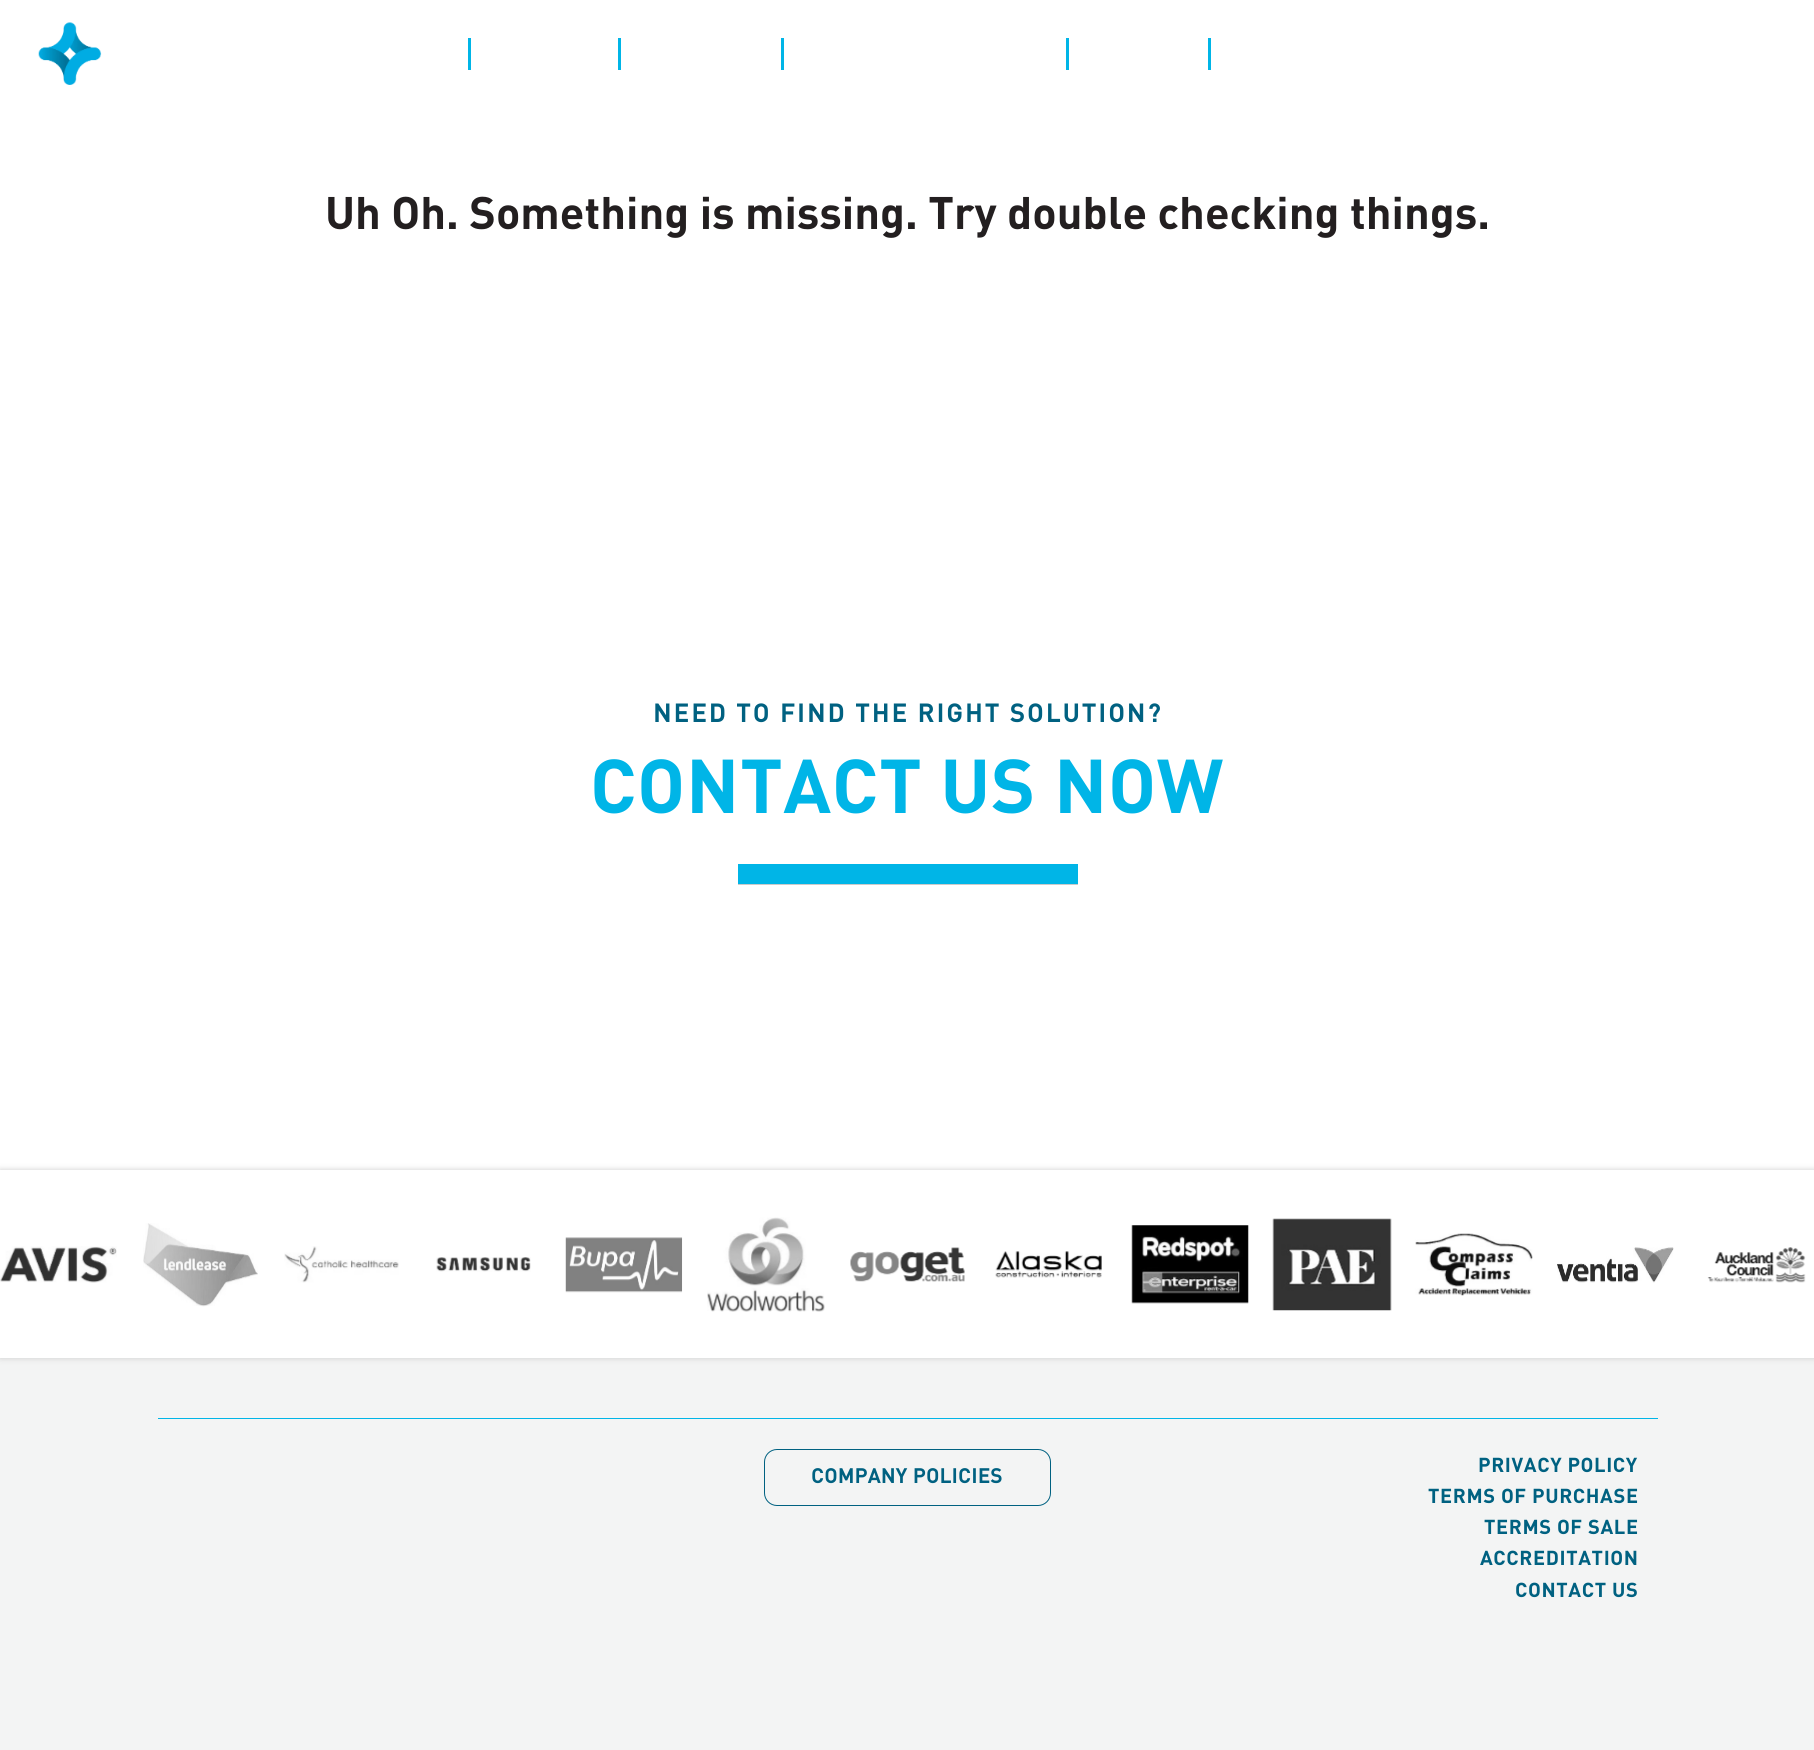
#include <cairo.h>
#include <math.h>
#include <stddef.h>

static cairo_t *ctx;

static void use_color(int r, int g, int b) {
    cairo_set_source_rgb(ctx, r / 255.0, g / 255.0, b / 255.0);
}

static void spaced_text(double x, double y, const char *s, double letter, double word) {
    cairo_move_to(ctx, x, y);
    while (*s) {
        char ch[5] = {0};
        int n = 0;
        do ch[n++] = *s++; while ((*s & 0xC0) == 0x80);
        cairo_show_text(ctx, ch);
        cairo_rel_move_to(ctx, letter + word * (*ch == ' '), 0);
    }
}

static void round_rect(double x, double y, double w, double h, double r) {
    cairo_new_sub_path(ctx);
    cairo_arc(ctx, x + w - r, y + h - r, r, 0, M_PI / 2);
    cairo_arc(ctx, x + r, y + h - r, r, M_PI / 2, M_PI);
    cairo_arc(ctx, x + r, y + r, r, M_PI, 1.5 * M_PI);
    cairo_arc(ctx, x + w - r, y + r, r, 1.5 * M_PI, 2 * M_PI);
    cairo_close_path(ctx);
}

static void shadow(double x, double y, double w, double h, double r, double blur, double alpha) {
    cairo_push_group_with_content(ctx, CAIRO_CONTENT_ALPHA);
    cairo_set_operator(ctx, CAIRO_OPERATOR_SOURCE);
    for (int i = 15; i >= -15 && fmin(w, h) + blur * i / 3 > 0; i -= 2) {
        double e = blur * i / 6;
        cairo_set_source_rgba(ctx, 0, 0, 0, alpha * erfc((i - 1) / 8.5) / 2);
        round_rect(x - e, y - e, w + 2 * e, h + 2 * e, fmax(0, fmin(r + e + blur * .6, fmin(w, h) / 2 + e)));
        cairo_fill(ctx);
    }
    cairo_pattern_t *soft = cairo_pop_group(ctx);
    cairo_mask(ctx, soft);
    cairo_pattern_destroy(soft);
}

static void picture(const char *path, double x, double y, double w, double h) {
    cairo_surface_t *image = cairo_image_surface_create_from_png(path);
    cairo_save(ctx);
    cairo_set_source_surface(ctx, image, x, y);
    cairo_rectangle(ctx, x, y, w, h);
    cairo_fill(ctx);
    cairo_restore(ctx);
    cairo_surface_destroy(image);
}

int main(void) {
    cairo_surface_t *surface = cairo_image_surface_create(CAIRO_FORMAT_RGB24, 1814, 1750);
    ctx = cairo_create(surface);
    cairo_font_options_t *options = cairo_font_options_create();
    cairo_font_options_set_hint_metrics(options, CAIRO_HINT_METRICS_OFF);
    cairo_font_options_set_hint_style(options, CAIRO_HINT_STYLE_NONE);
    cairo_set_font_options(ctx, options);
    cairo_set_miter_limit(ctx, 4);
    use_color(255, 255, 255);
    cairo_paint(ctx);
    picture("img1.png", 38, 22, 64, 63);
    use_color(0, 181, 231);
    cairo_rectangle(ctx, 468, 38, 3, 32);
    cairo_fill(ctx);
    cairo_rectangle(ctx, 618, 38, 3, 32);
    cairo_fill(ctx);
    cairo_rectangle(ctx, 781, 38, 3, 32);
    cairo_fill(ctx);
    cairo_rectangle(ctx, 1066, 38, 3, 32);
    cairo_fill(ctx);
    cairo_rectangle(ctx, 1208, 38, 3, 32);
    cairo_fill(ctx);
    cairo_select_font_face(ctx, "DIN", CAIRO_FONT_SLANT_NORMAL, CAIRO_FONT_WEIGHT_BOLD);
    cairo_set_font_size(ctx, 45);
    use_color(35, 31, 32);
    cairo_move_to(ctx, 325, 229);
    cairo_show_text(ctx, "Uh Oh. Something is missing. Try double checking things.");
    cairo_select_font_face(ctx, "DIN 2", CAIRO_FONT_SLANT_NORMAL, CAIRO_FONT_WEIGHT_BOLD);
    cairo_set_font_size(ctx, 25);
    use_color(0, 97, 129);
    spaced_text(653, 722, "NEED TO FIND THE RIGHT SOLUTION?", 2.5, 0);
    cairo_select_font_face(ctx, "DIN", CAIRO_FONT_SLANT_NORMAL, CAIRO_FONT_WEIGHT_BOLD);
    cairo_set_font_size(ctx, 75);
    use_color(0, 181, 231);
    spaced_text(590, 813, "CONTACT US NOW", 0.6, 0);
    cairo_rectangle(ctx, 738, 864, 340, 20);
    cairo_fill(ctx);
    use_color(202, 202, 202);
    cairo_rectangle(ctx, 738, 884, 340, 1);
    cairo_fill(ctx);
    use_color(243, 244, 244);
    cairo_rectangle(ctx, 0, 1358, 1814, 392);
    cairo_fill(ctx);
    use_color(204, 204, 204);
    shadow(0, 1170, 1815, 188, 0, 3, 1);
    use_color(255, 255, 255);
    cairo_rectangle(ctx, 0, 1170, 1814, 188);
    cairo_fill(ctx);
    picture("img2.png", 0, 1246, 117, 37);
    picture("img3.png", 143, 1223, 115, 84);
    picture("img4.png", 284, 1246, 115, 37);
    picture("img5.png", 436, 1257, 95, 15);
    picture("img6.png", 565, 1237, 118, 56);
    picture("img7.png", 707, 1217, 118, 95);
    picture("img8.png", 850, 1247, 115, 35);
    picture("img9.png", 995, 1251, 107, 27);
    picture("img10.png", 1131, 1225, 118, 79);
    picture("img11.png", 1272, 1218, 120, 93);
    picture("img12.png", 1415, 1233, 118, 63);
    picture("img13.png", 1557, 1247, 117, 36);
    picture("img14.png", 1707, 1247, 99, 36);
    use_color(0, 181, 231);
    cairo_rectangle(ctx, 158, 1418, 1500, 1);
    cairo_fill(ctx);
    round_rect(764.5, 1449.5, 286, 56, 12.5);
    use_color(0, 97, 129);
    cairo_set_line_width(ctx, 1);
    cairo_stroke(ctx);
    cairo_select_font_face(ctx, "DIN 2", CAIRO_FONT_SLANT_NORMAL, CAIRO_FONT_WEIGHT_BOLD);
    cairo_set_font_size(ctx, 20);
    spaced_text(811, 1483, "COMPANY POLICIES", 0.6, 0);
    cairo_select_font_face(ctx, "DIN", CAIRO_FONT_SLANT_NORMAL, CAIRO_FONT_WEIGHT_BOLD);
    spaced_text(1478, 1472, "PRIVACY POLICY", 0.6, 0);
    spaced_text(1428, 1503, "TERMS OF PURCHASE", 0.6, 0);
    spaced_text(1484, 1534, "TERMS OF SALE", 0.6, 0);
    spaced_text(1480, 1565, "ACCREDITATION", 0.6, 0);
    spaced_text(1515, 1597, "CONTACT US", 0.6, 0);
    cairo_surface_write_to_png(surface, "result.png");
    cairo_font_options_destroy(options);
    cairo_destroy(ctx);
    cairo_surface_destroy(surface);
    return 0;
}
